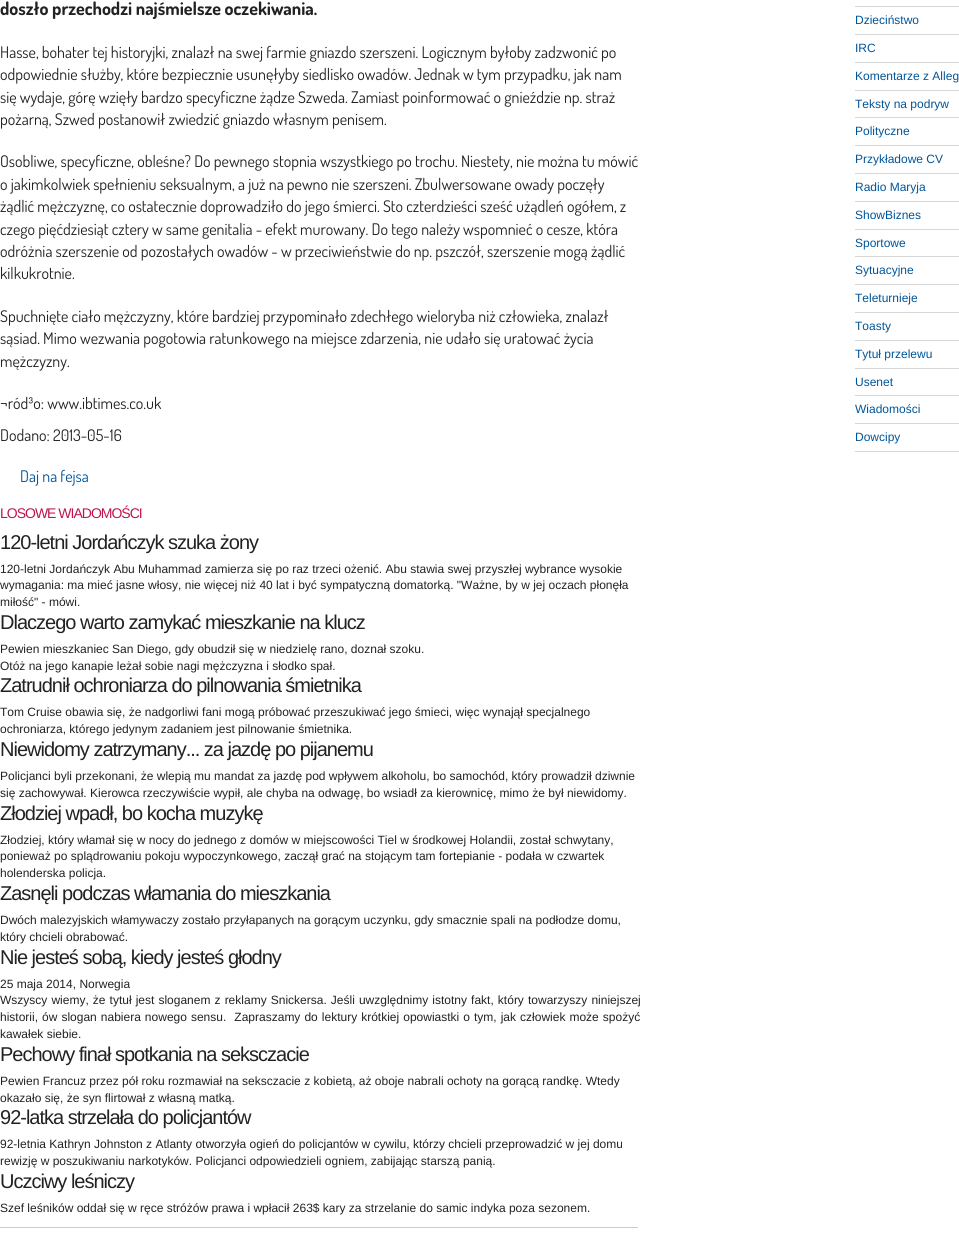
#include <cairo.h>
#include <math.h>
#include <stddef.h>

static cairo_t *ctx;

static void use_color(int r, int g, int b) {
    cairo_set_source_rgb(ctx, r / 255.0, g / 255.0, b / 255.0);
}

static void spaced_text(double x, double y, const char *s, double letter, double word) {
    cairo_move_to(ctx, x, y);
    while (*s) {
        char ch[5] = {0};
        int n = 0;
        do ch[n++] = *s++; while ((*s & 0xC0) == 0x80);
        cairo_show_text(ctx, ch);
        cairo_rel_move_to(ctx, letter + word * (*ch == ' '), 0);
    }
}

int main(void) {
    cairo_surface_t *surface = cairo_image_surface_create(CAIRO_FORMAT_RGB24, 959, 1241);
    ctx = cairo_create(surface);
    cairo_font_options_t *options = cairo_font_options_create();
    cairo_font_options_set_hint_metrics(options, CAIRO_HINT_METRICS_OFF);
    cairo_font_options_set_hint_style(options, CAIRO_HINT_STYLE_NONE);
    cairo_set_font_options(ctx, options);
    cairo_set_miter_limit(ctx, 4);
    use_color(255, 255, 255);
    cairo_paint(ctx);
    cairo_select_font_face(ctx, "Dosis", CAIRO_FONT_SLANT_NORMAL, CAIRO_FONT_WEIGHT_BOLD);
    cairo_set_font_size(ctx, 18);
    use_color(34, 34, 34);
    cairo_move_to(ctx, 0, 15);
    cairo_show_text(ctx, "doszło przechodzi najśmielsze oczekiwania.");
    cairo_select_font_face(ctx, "Dosis", CAIRO_FONT_SLANT_NORMAL, CAIRO_FONT_WEIGHT_NORMAL);
    cairo_set_font_size(ctx, 16);
    cairo_move_to(ctx, 0, 58);
    cairo_show_text(ctx, "Hasse, bohater tej historyjki, znalazł na swej farmie gniazdo szerszeni. Logicznym byłoby zadzwonić po");
    cairo_move_to(ctx, 0, 80);
    cairo_show_text(ctx, "odpowiednie służby, które bezpiecznie usunęłyby siedlisko owadów. Jednak w tym przypadku, jak nam");
    cairo_move_to(ctx, 0, 103);
    cairo_show_text(ctx, "się wydaje, górę wzięły bardzo specyficzne żądze Szweda. Zamiast poinformować o gnieździe np. straż");
    cairo_move_to(ctx, 0, 125);
    cairo_show_text(ctx, "pożarną, Szwed postanowił zwiedzić gniazdo własnym penisem.");
    cairo_move_to(ctx, 0, 167);
    cairo_show_text(ctx, "Osobliwe, specyficzne, obleśne? Do pewnego stopnia wszystkiego po trochu. Niestety, nie można tu mówić");
    cairo_move_to(ctx, 0, 190);
    cairo_show_text(ctx, "o jakimkolwiek spełnieniu seksualnym, a już na pewno nie szerszeni. Zbulwersowane owady poczęły");
    cairo_move_to(ctx, 0, 212);
    cairo_show_text(ctx, "żądlić mężczyznę, co ostatecznie doprowadziło do jego śmierci. Sto czterdzieści sześć użądleń ogółem, z");
    cairo_move_to(ctx, 0, 235);
    cairo_show_text(ctx, "czego pięćdziesiąt cztery w same genitalia - efekt murowany. Do tego należy wspomnieć o cesze, która");
    cairo_move_to(ctx, 0, 257);
    cairo_show_text(ctx, "odróżnia szerszenie od pozostałych owadów - w przeciwieństwie do np. pszczół, szerszenie mogą żądlić");
    cairo_move_to(ctx, 0, 279);
    cairo_show_text(ctx, "kilkukrotnie.");
    cairo_move_to(ctx, 0, 322);
    cairo_show_text(ctx, "Spuchnięte ciało mężczyzny, które bardziej przypominało zdechłego wieloryba niż człowieka, znalazł");
    cairo_move_to(ctx, 0, 344);
    cairo_show_text(ctx, "sąsiad. Mimo wezwania pogotowia ratunkowego na miejsce zdarzenia, nie udało się uratować życia");
    cairo_move_to(ctx, 0, 367);
    cairo_show_text(ctx, "mężczyzny.");
    cairo_move_to(ctx, 0, 409);
    cairo_show_text(ctx, "¬ród³o: www.ibtimes.co.uk");
    cairo_move_to(ctx, 0, 441);
    cairo_show_text(ctx, "Dodano: 2013-05-16");
    use_color(0, 85, 153);
    cairo_move_to(ctx, 20, 482);
    cairo_show_text(ctx, "Daj na fejsa");
    cairo_select_font_face(ctx, "Liberation Sans", CAIRO_FONT_SLANT_NORMAL, CAIRO_FONT_WEIGHT_NORMAL);
    cairo_set_font_size(ctx, 14);
    use_color(191, 20, 80);
    spaced_text(0, 518, "LOSOWE WIADOMOŚCI", -1, 0);
    cairo_set_font_size(ctx, 20);
    use_color(34, 34, 34);
    spaced_text(0, 549, "120-letni Jordańczyk szuka żony", -1, 0);
    cairo_set_font_size(ctx, 12);
    cairo_move_to(ctx, 0, 573);
    cairo_show_text(ctx, "120-letni Jordańczyk Abu Muhammad zamierza się po raz trzeci ożenić. Abu stawia swej przyszłej wybrance wysokie");
    cairo_move_to(ctx, 0, 589);
    cairo_show_text(ctx, "wymagania: ma mieć jasne włosy, nie więcej niż 40 lat i być sympatyczną domatorką. \"Ważne, by w jej oczach płonęła");
    cairo_move_to(ctx, 0, 606);
    cairo_show_text(ctx, "miłość\" - mówi.");
    cairo_set_font_size(ctx, 20);
    spaced_text(0, 629, "Dlaczego warto zamykać mieszkanie na klucz", -1, 0);
    cairo_set_font_size(ctx, 12);
    cairo_move_to(ctx, 0, 653);
    cairo_show_text(ctx, "Pewien mieszkaniec San Diego, gdy obudził się w niedzielę rano, doznał szoku.");
    cairo_move_to(ctx, 0, 670);
    cairo_show_text(ctx, "Otóż na jego kanapie leżał sobie nagi mężczyzna i słodko spał.");
    cairo_set_font_size(ctx, 20);
    spaced_text(0, 692, "Zatrudnił ochroniarza do pilnowania śmietnika", -1, 0);
    cairo_set_font_size(ctx, 12);
    cairo_move_to(ctx, 0, 716);
    cairo_show_text(ctx, "Tom Cruise obawia się, że nadgorliwi fani mogą próbować przeszukiwać jego śmieci, więc wynajął specjalnego");
    cairo_move_to(ctx, 0, 733);
    cairo_show_text(ctx, "ochroniarza, którego jedynym zadaniem jest pilnowanie śmietnika.");
    cairo_set_font_size(ctx, 20);
    spaced_text(0, 756, "Niewidomy zatrzymany... za jazdę po pijanemu", -1, 0);
    cairo_set_font_size(ctx, 12);
    cairo_move_to(ctx, 0, 780);
    cairo_show_text(ctx, "Policjanci byli przekonani, że wlepią mu mandat za jazdę pod wpływem alkoholu, bo samochód, który prowadził dziwnie");
    cairo_move_to(ctx, 0, 797);
    cairo_show_text(ctx, "się zachowywał. Kierowca rzeczywiście wypił, ale chyba na odwagę, bo wsiadł za kierownicę, mimo że był niewidomy.");
    cairo_set_font_size(ctx, 20);
    spaced_text(0, 820, "Złodziej wpadł, bo kocha muzykę", -1, 0);
    cairo_set_font_size(ctx, 12);
    cairo_move_to(ctx, 0, 844);
    cairo_show_text(ctx, "Złodziej, który włamał się w nocy do jednego z domów w miejscowości Tiel w środkowej Holandii, został schwytany,");
    cairo_move_to(ctx, 0, 860);
    cairo_show_text(ctx, "ponieważ po splądrowaniu pokoju wypoczynkowego, zaczął grać na stojącym tam fortepianie - podała w czwartek");
    cairo_move_to(ctx, 0, 877);
    cairo_show_text(ctx, "holenderska policja.");
    cairo_set_font_size(ctx, 20);
    spaced_text(0, 900, "Zasnęli podczas włamania do mieszkania", -1, 0);
    cairo_set_font_size(ctx, 12);
    cairo_move_to(ctx, 0, 924);
    cairo_show_text(ctx, "Dwóch malezyjskich włamywaczy zostało przyłapanych na gorącym uczynku, gdy smacznie spali na podłodze domu,");
    cairo_move_to(ctx, 0, 941);
    cairo_show_text(ctx, "który chcieli obrabować.");
    cairo_set_font_size(ctx, 20);
    spaced_text(0, 964, "Nie jesteś sobą, kiedy jesteś głodny", -1, 0);
    cairo_set_font_size(ctx, 12);
    cairo_move_to(ctx, 0, 988);
    cairo_show_text(ctx, "25 maja 2014, Norwegia");
    spaced_text(0, 1004, "Wszyscy wiemy, że tytuł jest sloganem z reklamy Snickersa. Jeśli uwzględnimy istotny fakt, który towarzyszy niniejszej", 0, 0.75);
    spaced_text(0, 1021, "historii, ów slogan nabiera nowego sensu.  Zapraszamy do lektury krótkiej opowiastki o tym, jak człowiek może spożyć", 0, 0.7);
    cairo_move_to(ctx, 0, 1038);
    cairo_show_text(ctx, "kawałek siebie.");
    cairo_set_font_size(ctx, 20);
    spaced_text(0, 1061, "Pechowy finał spotkania na seksczacie", -1, 0);
    cairo_set_font_size(ctx, 12);
    cairo_move_to(ctx, 0, 1085);
    cairo_show_text(ctx, "Pewien Francuz przez pół roku rozmawiał na seksczacie z kobietą, aż oboje nabrali ochoty na gorącą randkę. Wtedy");
    cairo_move_to(ctx, 0, 1102);
    cairo_show_text(ctx, "okazało się, że syn flirtował z własną matką.");
    cairo_set_font_size(ctx, 20);
    spaced_text(0, 1124, "92-latka strzelała do policjantów", -1, 0);
    cairo_set_font_size(ctx, 12);
    cairo_move_to(ctx, 0, 1148);
    cairo_show_text(ctx, "92-letnia Kathryn Johnston z Atlanty otworzyła ogień do policjantów w cywilu, którzy chcieli przeprowadzić w jej domu");
    cairo_move_to(ctx, 0, 1165);
    cairo_show_text(ctx, "rewizję w poszukiwaniu narkotyków. Policjanci odpowiedzieli ogniem, zabijając starszą panią.");
    cairo_set_font_size(ctx, 20);
    spaced_text(0, 1188, "Uczciwy leśniczy", -1, 0);
    cairo_set_font_size(ctx, 12);
    cairo_move_to(ctx, 0, 1212);
    cairo_show_text(ctx, "Szef leśników oddał się w ręce stróżów prawa i wpłacił 263$ kary za strzelanie do samic indyka poza sezonem.");
    use_color(204, 204, 204);
    cairo_rectangle(ctx, 0, 1227, 638, 1);
    cairo_fill(ctx);
    use_color(214, 214, 214);
    cairo_rectangle(ctx, 855, 6, 104, 1);
    cairo_fill(ctx);
    cairo_rectangle(ctx, 855, 34, 104, 1);
    cairo_fill(ctx);
    use_color(0, 85, 153);
    cairo_move_to(ctx, 855, 24);
    cairo_show_text(ctx, "Dzieciństwo");
    use_color(214, 214, 214);
    cairo_rectangle(ctx, 855, 62, 104, 1);
    cairo_fill(ctx);
    use_color(0, 85, 153);
    cairo_move_to(ctx, 855, 52);
    cairo_show_text(ctx, "IRC");
    use_color(214, 214, 214);
    cairo_rectangle(ctx, 855, 90, 104, 1);
    cairo_fill(ctx);
    use_color(0, 85, 153);
    cairo_move_to(ctx, 855, 80);
    cairo_show_text(ctx, "Komentarze z Alleg");
    use_color(214, 214, 214);
    cairo_rectangle(ctx, 855, 117, 104, 1);
    cairo_fill(ctx);
    use_color(0, 85, 153);
    cairo_move_to(ctx, 855, 108);
    cairo_show_text(ctx, "Teksty na podryw");
    use_color(214, 214, 214);
    cairo_rectangle(ctx, 855, 145, 104, 1);
    cairo_fill(ctx);
    use_color(0, 85, 153);
    cairo_move_to(ctx, 855, 135);
    cairo_show_text(ctx, "Polityczne");
    use_color(214, 214, 214);
    cairo_rectangle(ctx, 855, 173, 104, 1);
    cairo_fill(ctx);
    use_color(0, 85, 153);
    cairo_move_to(ctx, 855, 163);
    cairo_show_text(ctx, "Przykładowe CV");
    use_color(214, 214, 214);
    cairo_rectangle(ctx, 855, 201, 104, 1);
    cairo_fill(ctx);
    use_color(0, 85, 153);
    cairo_move_to(ctx, 855, 191);
    cairo_show_text(ctx, "Radio Maryja");
    use_color(214, 214, 214);
    cairo_rectangle(ctx, 855, 229, 104, 1);
    cairo_fill(ctx);
    use_color(0, 85, 153);
    cairo_move_to(ctx, 855, 219);
    cairo_show_text(ctx, "ShowBiznes");
    use_color(214, 214, 214);
    cairo_rectangle(ctx, 855, 256, 104, 1);
    cairo_fill(ctx);
    use_color(0, 85, 153);
    cairo_move_to(ctx, 855, 247);
    cairo_show_text(ctx, "Sportowe");
    use_color(214, 214, 214);
    cairo_rectangle(ctx, 855, 284, 104, 1);
    cairo_fill(ctx);
    use_color(0, 85, 153);
    cairo_move_to(ctx, 855, 274);
    cairo_show_text(ctx, "Sytuacyjne");
    use_color(214, 214, 214);
    cairo_rectangle(ctx, 855, 312, 104, 1);
    cairo_fill(ctx);
    use_color(0, 85, 153);
    cairo_move_to(ctx, 855, 302);
    cairo_show_text(ctx, "Teleturnieje");
    use_color(214, 214, 214);
    cairo_rectangle(ctx, 855, 340, 104, 1);
    cairo_fill(ctx);
    use_color(0, 85, 153);
    cairo_move_to(ctx, 855, 330);
    cairo_show_text(ctx, "Toasty");
    use_color(214, 214, 214);
    cairo_rectangle(ctx, 855, 368, 104, 1);
    cairo_fill(ctx);
    use_color(0, 85, 153);
    cairo_move_to(ctx, 855, 358);
    cairo_show_text(ctx, "Tytuł przelewu");
    use_color(214, 214, 214);
    cairo_rectangle(ctx, 855, 395, 104, 1);
    cairo_fill(ctx);
    use_color(0, 85, 153);
    cairo_move_to(ctx, 855, 386);
    cairo_show_text(ctx, "Usenet");
    use_color(214, 214, 214);
    cairo_rectangle(ctx, 855, 423, 104, 1);
    cairo_fill(ctx);
    use_color(0, 85, 153);
    cairo_move_to(ctx, 855, 413);
    cairo_show_text(ctx, "Wiadomości");
    use_color(214, 214, 214);
    cairo_rectangle(ctx, 855, 451, 104, 1);
    cairo_fill(ctx);
    use_color(0, 85, 153);
    cairo_move_to(ctx, 855, 441);
    cairo_show_text(ctx, "Dowcipy");
    cairo_surface_write_to_png(surface, "result.png");
    cairo_font_options_destroy(options);
    cairo_destroy(ctx);
    cairo_surface_destroy(surface);
    return 0;
}
